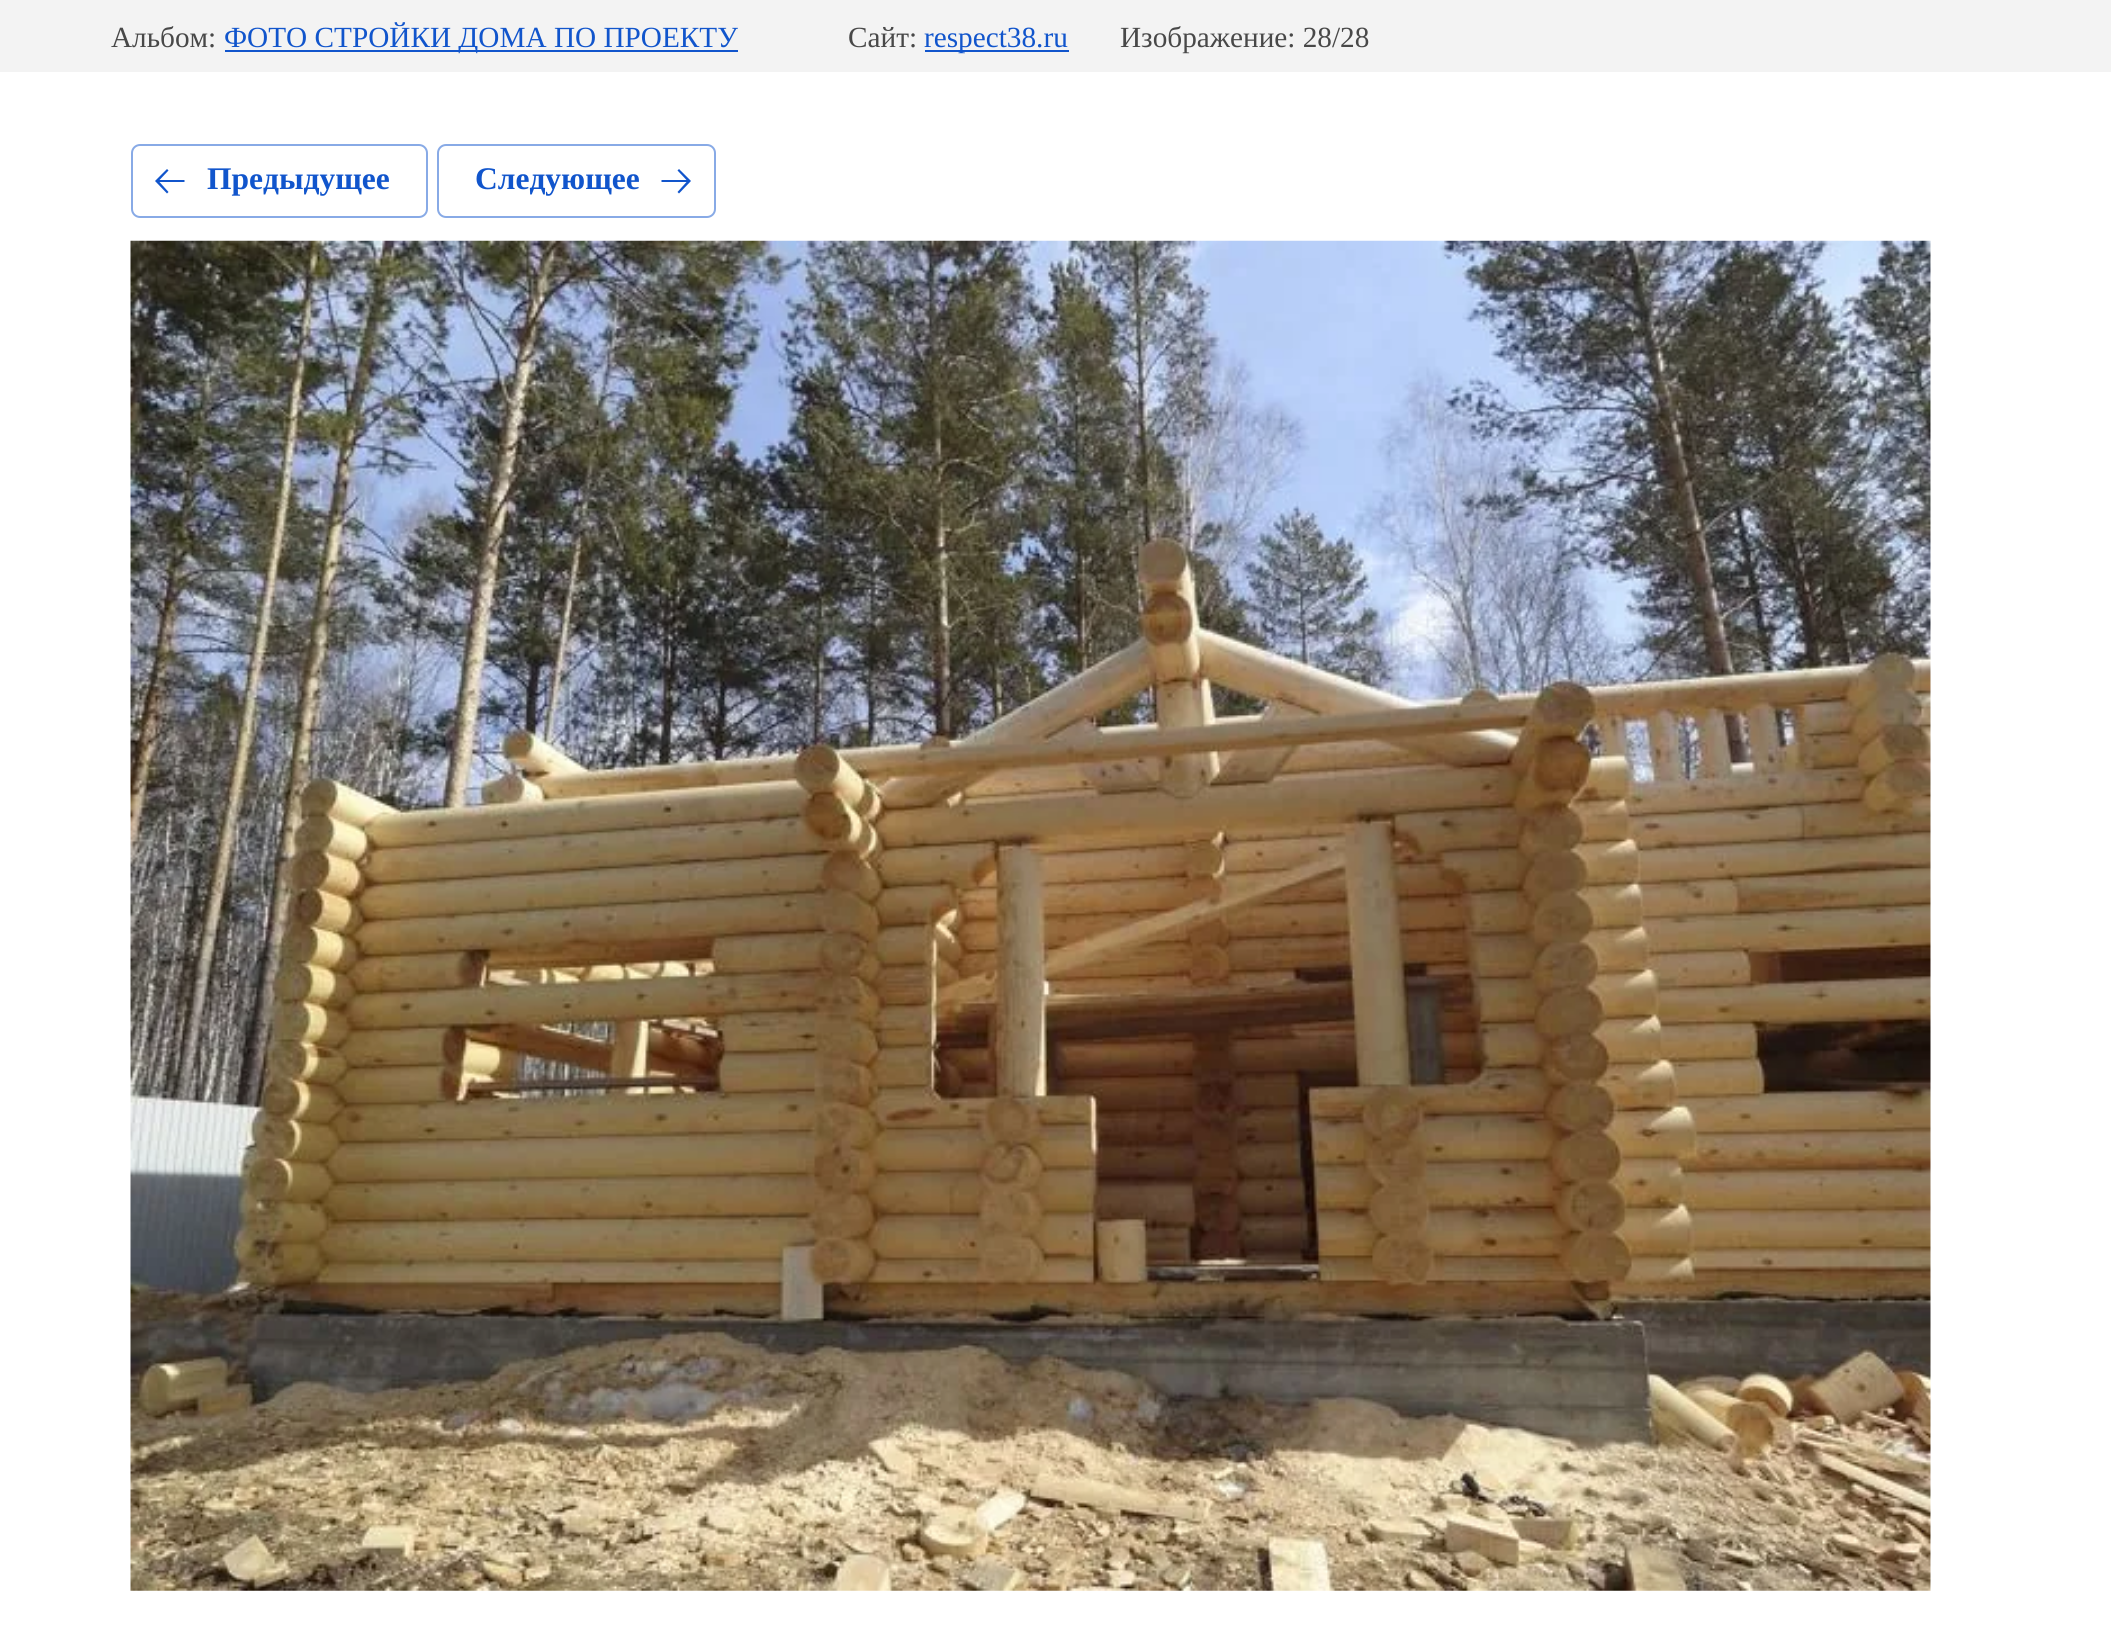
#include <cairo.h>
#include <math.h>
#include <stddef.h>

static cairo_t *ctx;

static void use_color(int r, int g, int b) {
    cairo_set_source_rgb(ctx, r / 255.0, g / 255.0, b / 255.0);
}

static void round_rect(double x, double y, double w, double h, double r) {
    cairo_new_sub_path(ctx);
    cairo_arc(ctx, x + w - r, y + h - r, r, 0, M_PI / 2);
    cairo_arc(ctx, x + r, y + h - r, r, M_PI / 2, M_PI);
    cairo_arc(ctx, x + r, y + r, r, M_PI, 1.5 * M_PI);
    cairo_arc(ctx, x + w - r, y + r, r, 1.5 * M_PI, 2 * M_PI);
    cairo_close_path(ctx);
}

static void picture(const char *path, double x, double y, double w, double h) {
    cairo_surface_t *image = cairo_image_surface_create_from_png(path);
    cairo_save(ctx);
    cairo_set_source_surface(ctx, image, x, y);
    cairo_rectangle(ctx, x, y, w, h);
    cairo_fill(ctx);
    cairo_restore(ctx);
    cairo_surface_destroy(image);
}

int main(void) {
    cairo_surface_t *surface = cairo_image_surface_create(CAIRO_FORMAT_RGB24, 2111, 1633);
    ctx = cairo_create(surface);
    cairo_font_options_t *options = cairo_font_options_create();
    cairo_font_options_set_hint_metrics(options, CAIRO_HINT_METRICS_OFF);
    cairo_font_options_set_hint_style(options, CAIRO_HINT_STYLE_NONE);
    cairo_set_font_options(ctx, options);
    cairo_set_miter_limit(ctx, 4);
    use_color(255, 255, 255);
    cairo_paint(ctx);
    use_color(243, 243, 243);
    cairo_rectangle(ctx, 0, 0, 2111, 72);
    cairo_fill(ctx);
    cairo_select_font_face(ctx, "Liberation Serif", CAIRO_FONT_SLANT_NORMAL, CAIRO_FONT_WEIGHT_NORMAL);
    cairo_set_font_size(ctx, 29.25);
    use_color(72, 72, 72);
    cairo_move_to(ctx, 111, 47);
    cairo_show_text(ctx, "Альбом:");
    use_color(17, 85, 204);
    cairo_rectangle(ctx, 225, 50, 513, 2);
    cairo_fill(ctx);
    cairo_move_to(ctx, 224, 47);
    cairo_show_text(ctx, "ФОТО СТРОЙКИ ДОМА ПО ПРОЕКТУ");
    use_color(72, 72, 72);
    cairo_move_to(ctx, 848, 47);
    cairo_show_text(ctx, "Сайт:");
    use_color(17, 85, 204);
    cairo_rectangle(ctx, 925, 50, 144, 2);
    cairo_fill(ctx);
    cairo_move_to(ctx, 924, 47);
    cairo_show_text(ctx, "respect38.ru");
    use_color(72, 72, 72);
    cairo_move_to(ctx, 1120, 47);
    cairo_show_text(ctx, "Изображение: 28/28");
    round_rect(132, 145, 295, 72, 8);
    use_color(136, 170, 230);
    cairo_stroke(ctx);
    use_color(17, 85, 204);
    cairo_new_path(ctx);
    cairo_move_to(ctx, 168.5, 170.5);
    cairo_line_to(ctx, 167, 169);
    cairo_line_to(ctx, 155, 181);
    cairo_line_to(ctx, 167, 193.5);
    cairo_line_to(ctx, 168.5, 192);
    cairo_line_to(ctx, 159.5, 182);
    cairo_line_to(ctx, 184.5, 182);
    cairo_line_to(ctx, 184.5, 180);
    cairo_line_to(ctx, 159.5, 180);
    cairo_close_path(ctx);
    cairo_fill(ctx);
    cairo_select_font_face(ctx, "Liberation Serif", CAIRO_FONT_SLANT_NORMAL, CAIRO_FONT_WEIGHT_BOLD);
    cairo_set_font_size(ctx, 31.5);
    cairo_move_to(ctx, 207, 189);
    cairo_show_text(ctx, "Предыдущее");
    round_rect(438, 145, 277, 72, 8);
    use_color(136, 170, 230);
    cairo_stroke(ctx);
    use_color(17, 85, 204);
    cairo_move_to(ctx, 475, 189);
    cairo_show_text(ctx, "Следующее");
    cairo_new_path(ctx);
    cairo_move_to(ctx, 677.5, 170.5);
    cairo_line_to(ctx, 679, 169);
    cairo_line_to(ctx, 691, 181);
    cairo_line_to(ctx, 679, 193.5);
    cairo_line_to(ctx, 677.5, 192);
    cairo_line_to(ctx, 686.5, 182);
    cairo_line_to(ctx, 661.5, 182);
    cairo_line_to(ctx, 661.5, 180);
    cairo_line_to(ctx, 686.5, 180);
    cairo_close_path(ctx);
    cairo_fill(ctx);
    picture("img1.png", 130, 240, 1801, 1351);
    cairo_surface_write_to_png(surface, "result.png");
    cairo_font_options_destroy(options);
    cairo_destroy(ctx);
    cairo_surface_destroy(surface);
    return 0;
}
